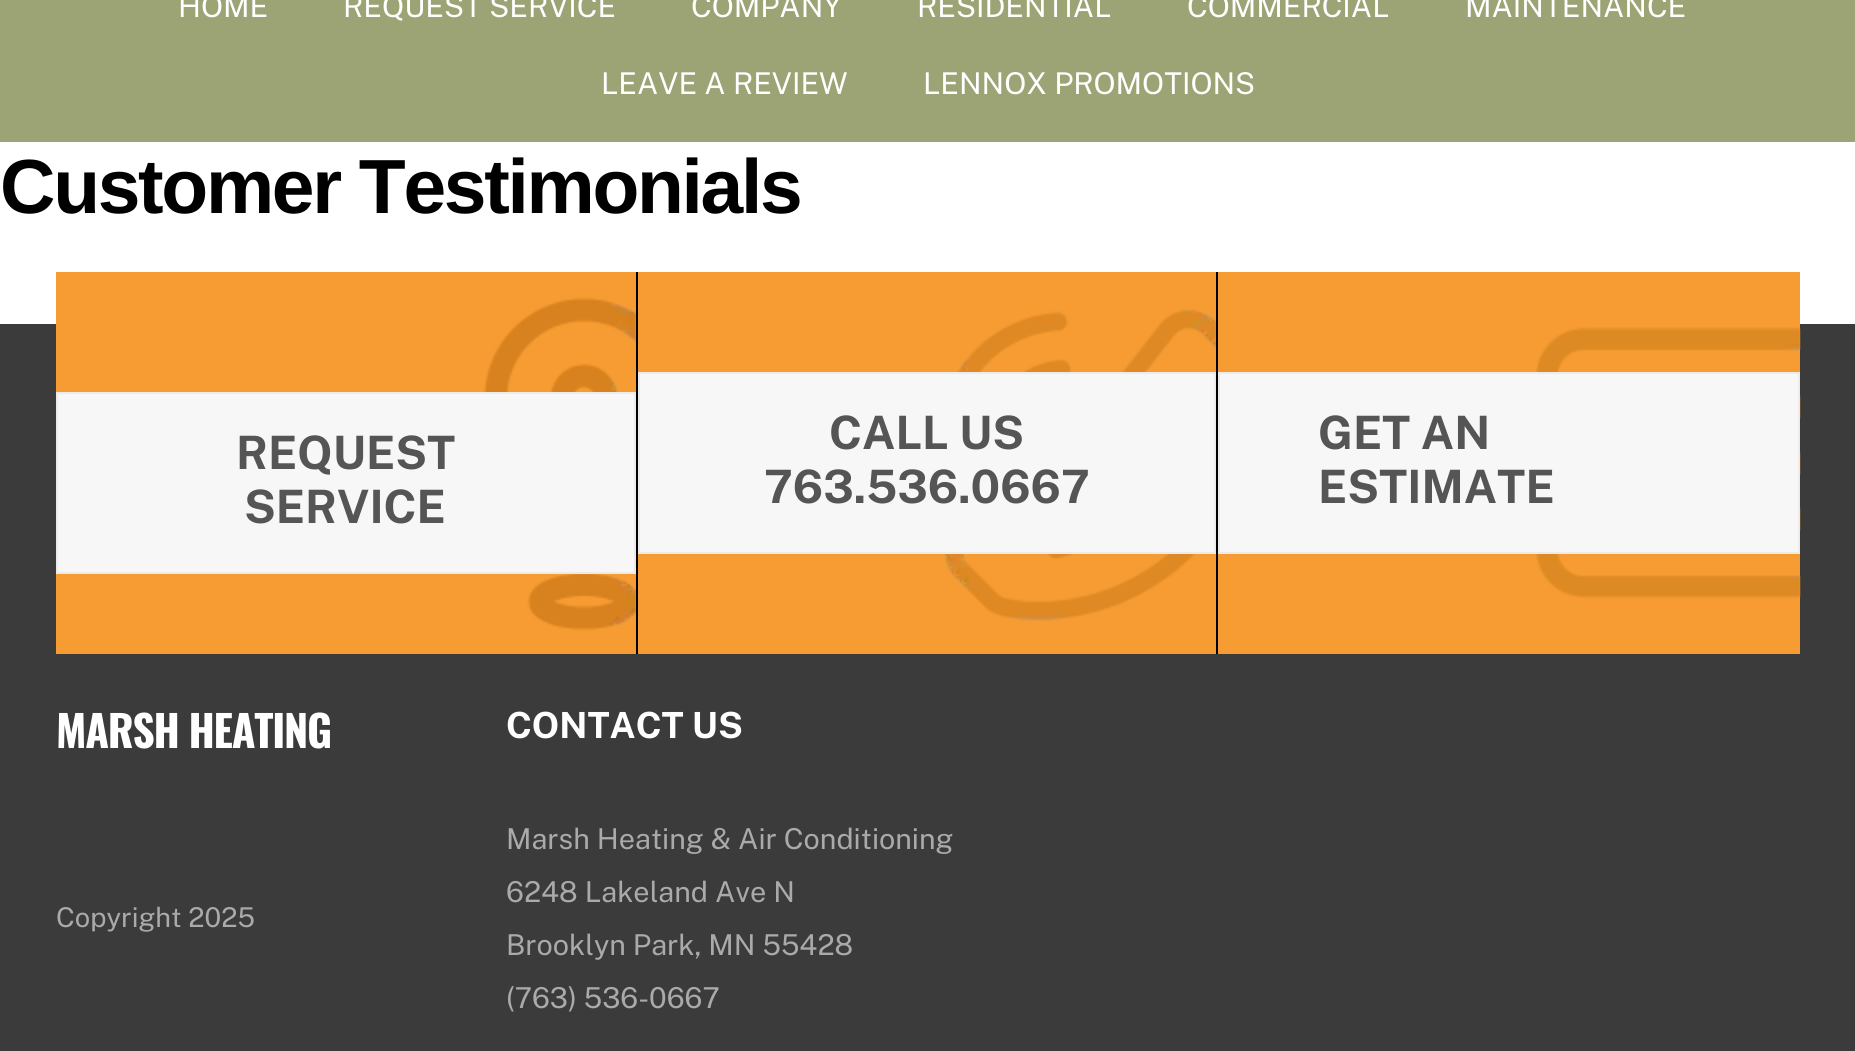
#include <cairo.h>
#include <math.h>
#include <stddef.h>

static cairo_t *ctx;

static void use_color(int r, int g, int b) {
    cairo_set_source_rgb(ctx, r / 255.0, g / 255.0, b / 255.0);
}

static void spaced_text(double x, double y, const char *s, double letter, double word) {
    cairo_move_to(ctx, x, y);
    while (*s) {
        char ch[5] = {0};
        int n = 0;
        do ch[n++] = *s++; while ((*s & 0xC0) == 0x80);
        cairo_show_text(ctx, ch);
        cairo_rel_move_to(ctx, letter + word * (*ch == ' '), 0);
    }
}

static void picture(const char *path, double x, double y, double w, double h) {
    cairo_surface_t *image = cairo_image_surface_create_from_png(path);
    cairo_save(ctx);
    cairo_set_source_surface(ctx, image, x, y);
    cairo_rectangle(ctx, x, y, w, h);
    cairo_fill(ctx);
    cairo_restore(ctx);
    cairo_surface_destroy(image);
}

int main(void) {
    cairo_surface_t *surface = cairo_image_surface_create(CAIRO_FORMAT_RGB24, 1855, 1051);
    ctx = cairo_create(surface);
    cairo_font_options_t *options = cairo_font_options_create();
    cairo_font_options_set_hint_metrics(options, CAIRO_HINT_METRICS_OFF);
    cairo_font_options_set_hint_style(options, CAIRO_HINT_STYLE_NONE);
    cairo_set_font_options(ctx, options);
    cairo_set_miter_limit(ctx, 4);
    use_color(255, 255, 255);
    cairo_paint(ctx);
    use_color(156, 164, 117);
    cairo_rectangle(ctx, 0, 0, 1855, 142);
    cairo_fill(ctx);
    cairo_select_font_face(ctx, "Public Sans", CAIRO_FONT_SLANT_NORMAL, CAIRO_FONT_WEIGHT_NORMAL);
    cairo_set_font_size(ctx, 30);
    use_color(255, 255, 255);
    cairo_move_to(ctx, 178, 17);
    cairo_show_text(ctx, "HOME");
    cairo_move_to(ctx, 343, 17);
    cairo_show_text(ctx, "REQUEST SERVICE");
    cairo_move_to(ctx, 691, 17);
    cairo_show_text(ctx, "COMPANY");
    cairo_move_to(ctx, 917, 17);
    cairo_show_text(ctx, "RESIDENTIAL");
    cairo_move_to(ctx, 1187, 17);
    cairo_show_text(ctx, "COMMERCIAL");
    cairo_move_to(ctx, 1465, 17);
    cairo_show_text(ctx, "MAINTENANCE");
    cairo_move_to(ctx, 601, 94);
    cairo_show_text(ctx, "LEAVE A REVIEW");
    cairo_move_to(ctx, 923, 94);
    cairo_show_text(ctx, "LENNOX PROMOTIONS");
    cairo_select_font_face(ctx, "Liberation Sans", CAIRO_FONT_SLANT_NORMAL, CAIRO_FONT_WEIGHT_BOLD);
    cairo_set_font_size(ctx, 76.75);
    use_color(0, 0, 0);
    spaced_text(0, 213, "Customer Testimonials", -2.3, 0);
    use_color(59, 59, 59);
    cairo_rectangle(ctx, 0, 324, 1855, 727);
    cairo_fill(ctx);
    use_color(246, 156, 50);
    cairo_rectangle(ctx, 56, 272, 580, 382);
    cairo_fill(ctx);
    picture("img1.png", 483, 297, 153, 334);
    use_color(0, 0, 0);
    cairo_rectangle(ctx, 636, 272, 2, 382);
    cairo_fill(ctx);
    use_color(247, 247, 247);
    cairo_rectangle(ctx, 57, 393, 578, 180);
    cairo_fill_preserve(ctx);
    use_color(235, 235, 235);
    cairo_stroke(ctx);
    cairo_select_font_face(ctx, "Public Sans", CAIRO_FONT_SLANT_NORMAL, CAIRO_FONT_WEIGHT_BOLD);
    cairo_set_font_size(ctx, 46);
    use_color(85, 85, 85);
    cairo_move_to(ctx, 236, 469);
    cairo_show_text(ctx, "REQUEST");
    cairo_move_to(ctx, 244, 523);
    cairo_show_text(ctx, "SERVICE");
    use_color(246, 156, 50);
    cairo_rectangle(ctx, 638, 272, 578, 382);
    cairo_fill(ctx);
    picture("img2.png", 943, 309, 273, 312);
    use_color(0, 0, 0);
    cairo_rectangle(ctx, 1216, 272, 2, 382);
    cairo_fill(ctx);
    use_color(247, 247, 247);
    cairo_rectangle(ctx, 639, 373, 576, 180);
    cairo_fill_preserve(ctx);
    use_color(235, 235, 235);
    cairo_stroke(ctx);
    use_color(85, 85, 85);
    cairo_move_to(ctx, 829, 449);
    cairo_show_text(ctx, "CALL US");
    cairo_move_to(ctx, 764, 503);
    cairo_show_text(ctx, "763.536.0667");
    use_color(246, 156, 50);
    cairo_rectangle(ctx, 1218, 272, 582, 382);
    cairo_fill(ctx);
    picture("img3.png", 1535, 327, 266, 272);
    use_color(247, 247, 247);
    cairo_rectangle(ctx, 1219, 373, 580, 180);
    cairo_fill_preserve(ctx);
    use_color(235, 235, 235);
    cairo_stroke(ctx);
    use_color(85, 85, 85);
    cairo_move_to(ctx, 1318, 449);
    cairo_show_text(ctx, "GET AN");
    cairo_move_to(ctx, 1318, 503);
    cairo_show_text(ctx, "ESTIMATE");
    cairo_select_font_face(ctx, "Oswald", CAIRO_FONT_SLANT_NORMAL, CAIRO_FONT_WEIGHT_BOLD);
    cairo_set_font_size(ctx, 43.25);
    use_color(255, 255, 255);
    spaced_text(56, 748, "MARSH HEATING", -1.25, 0);
    cairo_select_font_face(ctx, "Public Sans", CAIRO_FONT_SLANT_NORMAL, CAIRO_FONT_WEIGHT_NORMAL);
    cairo_set_font_size(ctx, 27.25);
    use_color(170, 170, 170);
    cairo_move_to(ctx, 56, 927);
    cairo_show_text(ctx, "Copyright 2025");
    cairo_select_font_face(ctx, "Public Sans", CAIRO_FONT_SLANT_NORMAL, CAIRO_FONT_WEIGHT_BOLD);
    cairo_set_font_size(ctx, 36);
    use_color(255, 255, 255);
    cairo_move_to(ctx, 506, 738);
    cairo_show_text(ctx, "CONTACT US");
    cairo_select_font_face(ctx, "Public Sans", CAIRO_FONT_SLANT_NORMAL, CAIRO_FONT_WEIGHT_NORMAL);
    cairo_set_font_size(ctx, 28.75);
    use_color(170, 170, 170);
    cairo_move_to(ctx, 506, 849);
    cairo_show_text(ctx, "Marsh Heating & Air Conditioning");
    cairo_move_to(ctx, 506, 902);
    cairo_show_text(ctx, "6248 Lakeland Ave N");
    cairo_move_to(ctx, 506, 955);
    cairo_show_text(ctx, "Brooklyn Park, MN 55428");
    cairo_move_to(ctx, 506, 1008);
    cairo_show_text(ctx, "(763) 536-0667");
    cairo_surface_write_to_png(surface, "result.png");
    cairo_font_options_destroy(options);
    cairo_destroy(ctx);
    cairo_surface_destroy(surface);
    return 0;
}
